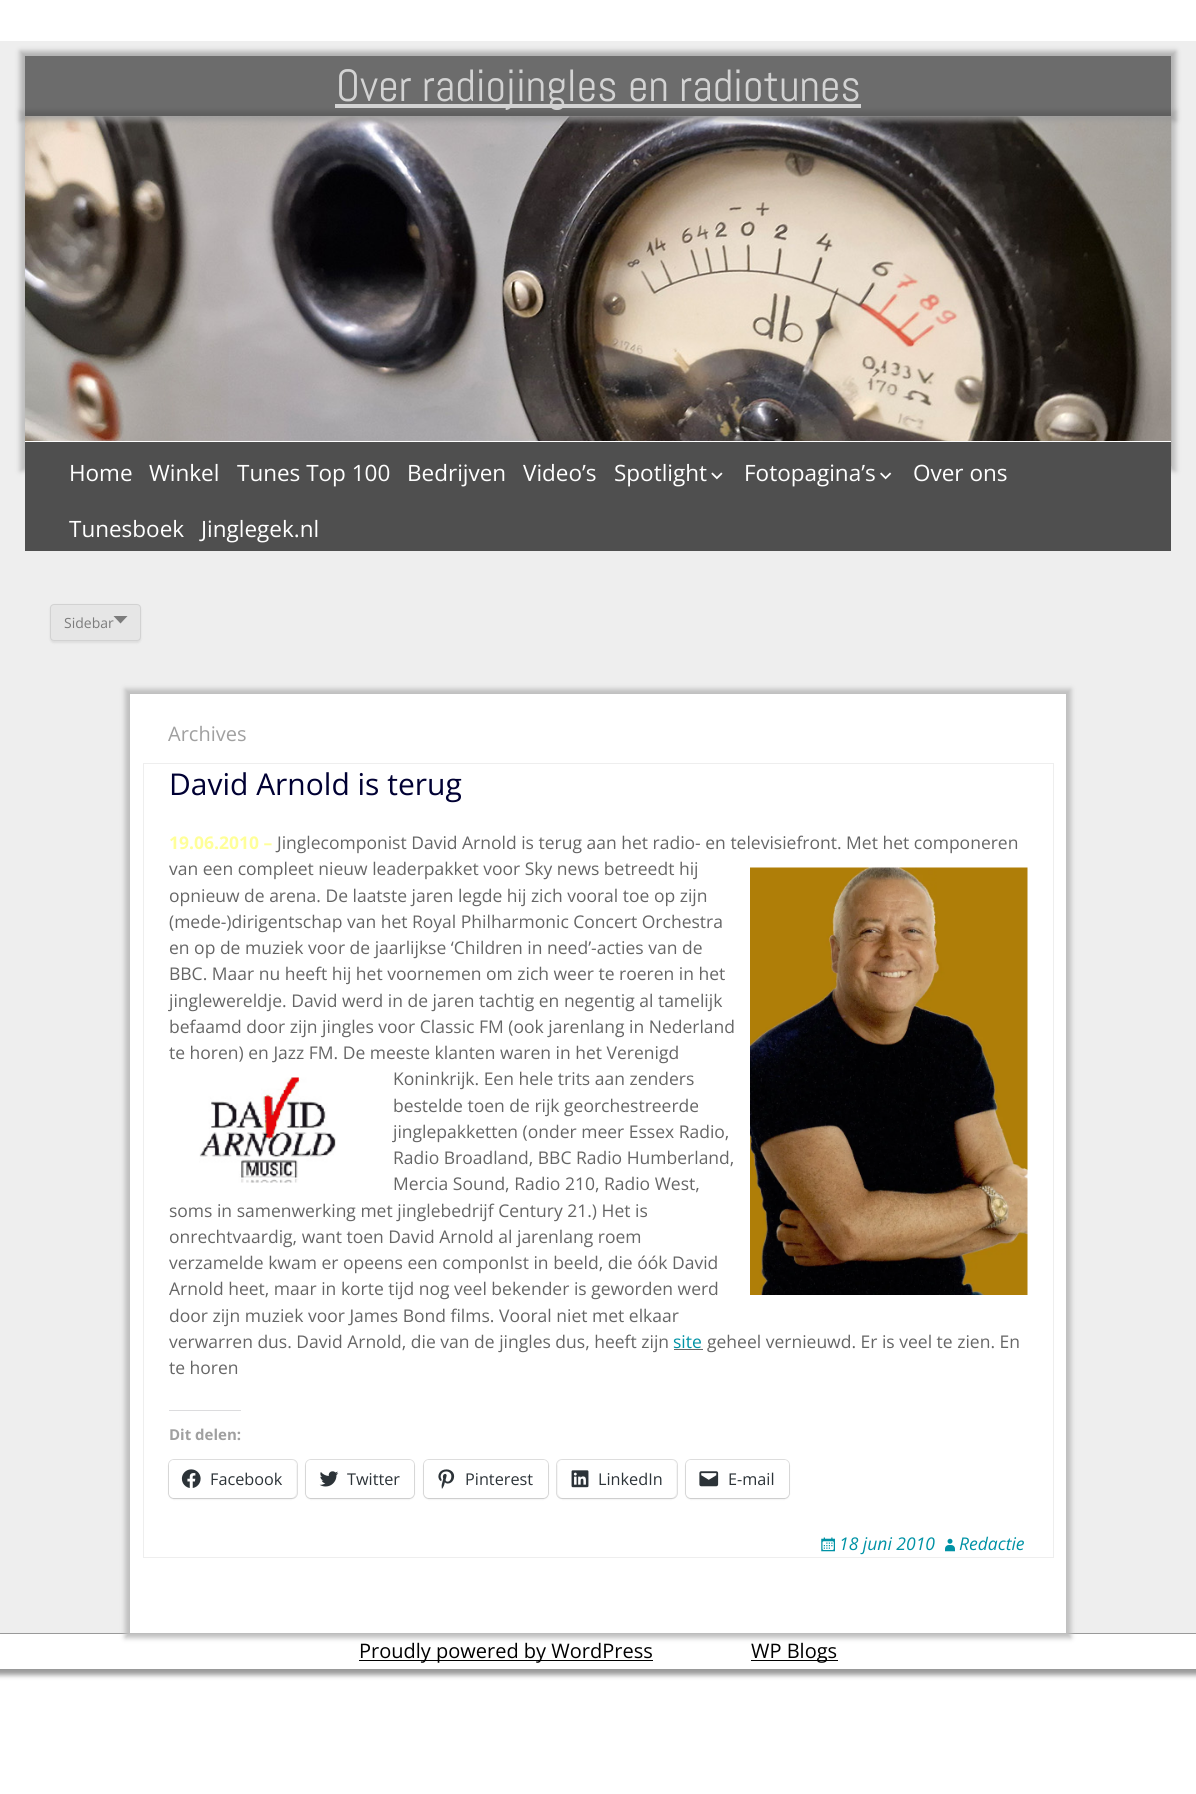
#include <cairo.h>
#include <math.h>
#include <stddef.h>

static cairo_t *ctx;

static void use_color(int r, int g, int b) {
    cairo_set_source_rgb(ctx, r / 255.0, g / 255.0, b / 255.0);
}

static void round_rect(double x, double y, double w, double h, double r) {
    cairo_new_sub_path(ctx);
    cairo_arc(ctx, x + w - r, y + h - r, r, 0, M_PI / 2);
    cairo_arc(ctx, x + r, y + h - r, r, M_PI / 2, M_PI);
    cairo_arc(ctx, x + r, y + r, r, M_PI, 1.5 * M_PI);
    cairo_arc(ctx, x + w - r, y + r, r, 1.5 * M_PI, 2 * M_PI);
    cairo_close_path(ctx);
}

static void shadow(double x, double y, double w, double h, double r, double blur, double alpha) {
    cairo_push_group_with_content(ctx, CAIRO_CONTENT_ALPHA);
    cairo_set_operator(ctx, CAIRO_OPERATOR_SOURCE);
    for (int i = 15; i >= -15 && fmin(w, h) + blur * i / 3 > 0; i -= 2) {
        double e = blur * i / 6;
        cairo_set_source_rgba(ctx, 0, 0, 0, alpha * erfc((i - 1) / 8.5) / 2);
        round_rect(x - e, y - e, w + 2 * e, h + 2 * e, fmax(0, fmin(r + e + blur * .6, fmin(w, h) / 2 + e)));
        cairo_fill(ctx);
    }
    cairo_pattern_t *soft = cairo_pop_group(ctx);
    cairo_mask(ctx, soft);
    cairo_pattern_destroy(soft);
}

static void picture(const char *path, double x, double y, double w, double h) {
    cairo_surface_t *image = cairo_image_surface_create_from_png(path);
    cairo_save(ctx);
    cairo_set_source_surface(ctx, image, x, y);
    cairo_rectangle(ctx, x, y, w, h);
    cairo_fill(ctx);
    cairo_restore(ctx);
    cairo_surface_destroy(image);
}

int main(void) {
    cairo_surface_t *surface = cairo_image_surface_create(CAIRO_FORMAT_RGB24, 1196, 1794);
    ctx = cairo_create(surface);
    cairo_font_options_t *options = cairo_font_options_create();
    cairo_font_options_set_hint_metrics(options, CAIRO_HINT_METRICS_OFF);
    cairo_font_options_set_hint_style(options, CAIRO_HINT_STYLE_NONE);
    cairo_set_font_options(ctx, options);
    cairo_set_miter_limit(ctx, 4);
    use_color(255, 255, 255);
    cairo_paint(ctx);
    use_color(153, 153, 153);
    shadow(-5, -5, 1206, 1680, 0, 2.5, 1);
    use_color(238, 238, 238);
    cairo_rectangle(ctx, 0, 41, 1196, 1592);
    cairo_fill(ctx);
    use_color(255, 255, 255);
    cairo_rectangle(ctx, 0, 0, 1196, 41);
    cairo_fill(ctx);
    use_color(191, 191, 191);
    shadow(20, 111, 1156, 360, 0, 2.5, 1);
    picture("img1.png", 25, 116, 1147, 351);
    cairo_save(ctx);
    cairo_set_fill_rule(ctx, CAIRO_FILL_RULE_EVEN_ODD);
    cairo_new_path(ctx);
    cairo_move_to(ctx, 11, 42);
    cairo_line_to(ctx, 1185, 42);
    cairo_line_to(ctx, 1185, 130);
    cairo_line_to(ctx, 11, 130);
    cairo_close_path(ctx);
    cairo_move_to(ctx, 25, 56);
    cairo_line_to(ctx, 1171, 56);
    cairo_line_to(ctx, 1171, 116);
    cairo_line_to(ctx, 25, 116);
    cairo_close_path(ctx);
    cairo_clip(ctx);
    use_color(153, 153, 153);
    shadow(20, 51, 1156, 70, 0, 2.5, 0.7);
    cairo_restore(ctx);
    cairo_set_source_rgba(ctx, 0.208, 0.208, 0.208, 0.7);
    cairo_rectangle(ctx, 25, 56, 1146, 60);
    cairo_fill(ctx);
    use_color(211, 211, 211);
    cairo_rectangle(ctx, 335, 104, 526, 4);
    cairo_fill(ctx);
    cairo_select_font_face(ctx, "Abel", CAIRO_FONT_SLANT_NORMAL, CAIRO_FONT_WEIGHT_NORMAL);
    cairo_set_font_size(ctx, 45);
    cairo_move_to(ctx, 336, 101);
    cairo_show_text(ctx, "Over radiojingles en radiotunes");
    use_color(79, 79, 79);
    cairo_rectangle(ctx, 25, 442, 1146, 109);
    cairo_fill(ctx);
    use_color(255, 255, 255);
    cairo_rectangle(ctx, 25, 441, 1146, 1);
    cairo_fill(ctx);
    cairo_select_font_face(ctx, "Open Sans", CAIRO_FONT_SLANT_NORMAL, CAIRO_FONT_WEIGHT_NORMAL);
    cairo_set_font_size(ctx, 22.5);
    cairo_move_to(ctx, 69, 481);
    cairo_show_text(ctx, "Home");
    cairo_move_to(ctx, 149, 481);
    cairo_show_text(ctx, "Winkel");
    cairo_move_to(ctx, 237, 481);
    cairo_show_text(ctx, "Tunes Top 100");
    cairo_move_to(ctx, 407, 481);
    cairo_show_text(ctx, "Bedrijven");
    cairo_move_to(ctx, 523, 481);
    cairo_show_text(ctx, "Video’s");
    cairo_move_to(ctx, 614, 481);
    cairo_show_text(ctx, "Spotlight");
    picture("img2.png", 711, 472, 12, 8);
    cairo_move_to(ctx, 744, 481);
    cairo_show_text(ctx, "Fotopagina’s");
    picture("img3.png", 880, 472, 12, 8);
    cairo_move_to(ctx, 913, 481);
    cairo_show_text(ctx, "Over ons");
    cairo_move_to(ctx, 69, 537);
    cairo_show_text(ctx, "Tunesboek");
    cairo_move_to(ctx, 201, 537);
    cairo_show_text(ctx, "Jinglegek.nl");
    use_color(64, 64, 64);
    shadow(50, 605, 91, 38, 4, 1, 0.1);
    use_color(230, 230, 230);
    round_rect(50.5, 604.5, 90, 36, 3.5);
    cairo_fill_preserve(ctx);
    use_color(210, 210, 210);
    cairo_set_line_width(ctx, 1);
    cairo_stroke(ctx);
    cairo_set_font_size(ctx, 14);
    use_color(124, 124, 124);
    cairo_move_to(ctx, 64, 628);
    cairo_show_text(ctx, "Sidebar");
    cairo_new_path(ctx);
    cairo_move_to(ctx, 113.5, 616);
    cairo_line_to(ctx, 127.5, 616);
    cairo_line_to(ctx, 120.5, 623.5);
    cairo_close_path(ctx);
    cairo_fill(ctx);
    use_color(255, 255, 255);
    cairo_rectangle(ctx, 0, 1634, 1196, 35);
    cairo_fill(ctx);
    use_color(191, 191, 191);
    shadow(125, 689, 946, 949, 0, 2.5, 1);
    use_color(255, 255, 255);
    cairo_rectangle(ctx, 130, 694, 936, 939);
    cairo_fill(ctx);
    cairo_set_font_size(ctx, 20);
    use_color(160, 160, 160);
    cairo_move_to(ctx, 168, 741);
    cairo_show_text(ctx, "Archives");
    cairo_rectangle(ctx, 143.5, 763.5, 910, 794);
    use_color(238, 238, 238);
    cairo_stroke(ctx);
    cairo_set_font_size(ctx, 30);
    use_color(0, 0, 51);
    cairo_move_to(ctx, 169, 795);
    cairo_show_text(ctx, "David Arnold is terug");
    cairo_select_font_face(ctx, "Open Sans", CAIRO_FONT_SLANT_NORMAL, CAIRO_FONT_WEIGHT_BOLD);
    cairo_set_font_size(ctx, 17.5);
    use_color(255, 255, 153);
    cairo_move_to(ctx, 169, 849);
    cairo_show_text(ctx, "19.06.2010 –");
    cairo_select_font_face(ctx, "Open Sans", CAIRO_FONT_SLANT_NORMAL, CAIRO_FONT_WEIGHT_NORMAL);
    use_color(102, 102, 102);
    cairo_move_to(ctx, 277, 849);
    cairo_show_text(ctx, "Jinglecomponist David Arnold is terug aan het radio- en televisiefront. Met het componeren");
    cairo_move_to(ctx, 169, 875);
    cairo_show_text(ctx, "van een compleet nieuw leaderpakket voor Sky news betreedt hij");
    picture("img4.png", 750, 867, 278, 428);
    cairo_move_to(ctx, 169, 902);
    cairo_show_text(ctx, "opnieuw de arena. De laatste jaren legde hij zich vooral toe op zijn");
    cairo_move_to(ctx, 169, 928);
    cairo_show_text(ctx, "(mede-)dirigentschap van het Royal Philharmonic Concert Orchestra");
    cairo_move_to(ctx, 169, 954);
    cairo_show_text(ctx, "en op de muziek voor de jaarlijkse ‘Children in need’-acties van de");
    cairo_move_to(ctx, 169, 980);
    cairo_show_text(ctx, "BBC. Maar nu heeft hij het voornemen om zich weer te roeren in het");
    cairo_move_to(ctx, 169, 1007);
    cairo_show_text(ctx, "jinglewereldje. David werd in de jaren tachtig en negentig al tamelijk");
    cairo_move_to(ctx, 169, 1033);
    cairo_show_text(ctx, "befaamd door zijn jingles voor Classic FM (ook jarenlang in Nederland");
    cairo_move_to(ctx, 169, 1059);
    cairo_show_text(ctx, "te horen) en Jazz FM. De meeste klanten waren in het Verenigd");
    picture("img5.png", 199, 1077, 137, 106);
    cairo_move_to(ctx, 393, 1085);
    cairo_show_text(ctx, "Koninkrijk. Een hele trits aan zenders");
    cairo_move_to(ctx, 393, 1112);
    cairo_show_text(ctx, "bestelde toen de rijk georchestreerde");
    cairo_move_to(ctx, 393, 1138);
    cairo_show_text(ctx, "jinglepakketten (onder meer Essex Radio,");
    cairo_move_to(ctx, 393, 1164);
    cairo_show_text(ctx, "Radio Broadland, BBC Radio Humberland,");
    cairo_move_to(ctx, 393, 1190);
    cairo_show_text(ctx, "Mercia Sound, Radio 210, Radio West,");
    cairo_move_to(ctx, 169, 1217);
    cairo_show_text(ctx, "soms in samenwerking met jinglebedrijf Century 21.) Het is");
    cairo_move_to(ctx, 169, 1243);
    cairo_show_text(ctx, "onrechtvaardig, want toen David Arnold al jarenlang roem");
    cairo_move_to(ctx, 169, 1269);
    cairo_show_text(ctx, "verzamelde kwam er opeens een componIst in beeld, die óók David");
    cairo_move_to(ctx, 169, 1295);
    cairo_show_text(ctx, "Arnold heet, maar in korte tijd nog veel bekender is geworden werd");
    cairo_move_to(ctx, 169, 1322);
    cairo_show_text(ctx, "door zijn muziek voor James Bond films. Vooral niet met elkaar");
    cairo_move_to(ctx, 169, 1348);
    cairo_show_text(ctx, "verwarren dus. David Arnold, die van de jingles dus, heeft zijn");
    use_color(0, 146, 165);
    cairo_move_to(ctx, 673, 1348);
    cairo_show_text(ctx, "site");
    use_color(102, 102, 102);
    cairo_rectangle(ctx, 674, 1349, 29, 1);
    cairo_fill(ctx);
    cairo_move_to(ctx, 707, 1348);
    cairo_show_text(ctx, "geheel vernieuwd. Er is veel te zien. En");
    cairo_move_to(ctx, 169, 1374);
    cairo_show_text(ctx, "te horen");
    use_color(220, 220, 222);
    cairo_rectangle(ctx, 169, 1410, 72, 1);
    cairo_fill(ctx);
    cairo_select_font_face(ctx, "Open Sans", CAIRO_FONT_SLANT_NORMAL, CAIRO_FONT_WEIGHT_BOLD);
    cairo_set_font_size(ctx, 15);
    use_color(160, 160, 160);
    cairo_move_to(ctx, 169, 1440);
    cairo_show_text(ctx, "Dit delen:");
    round_rect(168.5, 1459.5, 129, 39, 5.5);
    use_color(224, 224, 224);
    cairo_stroke(ctx);
    use_color(0, 0, 0);
    shadow(169, 1461, 127, 38, 5, 1, 0.12);
    use_color(255, 255, 255);
    round_rect(169, 1460, 127, 38, 5);
    cairo_fill(ctx);
    picture("img6.png", 181, 1469, 20, 19);
    cairo_select_font_face(ctx, "Open Sans", CAIRO_FONT_SLANT_NORMAL, CAIRO_FONT_WEIGHT_NORMAL);
    cairo_set_font_size(ctx, 16.25);
    use_color(44, 51, 56);
    cairo_move_to(ctx, 210, 1485);
    cairo_show_text(ctx, "Facebook");
    round_rect(305.5, 1459.5, 109, 39, 5.5);
    use_color(224, 224, 224);
    cairo_stroke(ctx);
    use_color(0, 0, 0);
    shadow(306, 1461, 108, 38, 5, 1, 0.12);
    use_color(255, 255, 255);
    round_rect(306, 1460, 108, 38, 5);
    cairo_fill(ctx);
    picture("img7.png", 319, 1471, 20, 16);
    use_color(44, 51, 56);
    cairo_move_to(ctx, 347, 1485);
    cairo_show_text(ctx, "Twitter");
    round_rect(423.5, 1459.5, 125, 39, 5.5);
    use_color(224, 224, 224);
    cairo_stroke(ctx);
    use_color(0, 0, 0);
    shadow(424, 1461, 124, 38, 5, 1, 0.12);
    use_color(255, 255, 255);
    round_rect(424, 1460, 124, 38, 5);
    cairo_fill(ctx);
    picture("img8.png", 438, 1469, 17, 20);
    use_color(44, 51, 56);
    cairo_move_to(ctx, 465, 1485);
    cairo_show_text(ctx, "Pinterest");
    round_rect(556.5, 1459.5, 121, 39, 5.5);
    use_color(224, 224, 224);
    cairo_stroke(ctx);
    use_color(0, 0, 0);
    shadow(558, 1461, 118, 38, 5, 1, 0.12);
    use_color(255, 255, 255);
    round_rect(558, 1460, 118, 38, 5);
    cairo_fill(ctx);
    picture("img9.png", 571, 1470, 18, 18);
    use_color(44, 51, 56);
    cairo_move_to(ctx, 598, 1485);
    cairo_show_text(ctx, "LinkedIn");
    round_rect(685.5, 1459.5, 104, 39, 5.5);
    use_color(224, 224, 224);
    cairo_stroke(ctx);
    use_color(0, 0, 0);
    shadow(686, 1461, 103, 38, 5, 1, 0.12);
    use_color(255, 255, 255);
    round_rect(686, 1460, 103, 38, 5);
    cairo_fill(ctx);
    picture("img10.png", 699, 1471, 20, 16);
    use_color(44, 51, 56);
    cairo_move_to(ctx, 728, 1485);
    cairo_show_text(ctx, "E-mail");
    picture("img11.png", 821, 1537, 14, 15);
    cairo_select_font_face(ctx, "Open Sans", CAIRO_FONT_SLANT_ITALIC, CAIRO_FONT_WEIGHT_NORMAL);
    cairo_set_font_size(ctx, 17.5);
    use_color(0, 146, 165);
    cairo_move_to(ctx, 839, 1550);
    cairo_show_text(ctx, "18 juni 2010");
    picture("img12.png", 945, 1538, 10, 14);
    cairo_move_to(ctx, 959, 1550);
    cairo_show_text(ctx, "Redactie");
    use_color(153, 153, 153);
    cairo_rectangle(ctx, 0, 1669, 1196, 1);
    cairo_fill(ctx);
    use_color(0, 0, 0);
    cairo_rectangle(ctx, 359, 1660, 294, 1);
    cairo_fill(ctx);
    cairo_select_font_face(ctx, "Open Sans", CAIRO_FONT_SLANT_NORMAL, CAIRO_FONT_WEIGHT_NORMAL);
    cairo_set_font_size(ctx, 20);
    cairo_move_to(ctx, 359, 1658);
    cairo_show_text(ctx, "Proudly powered by WordPress");
    cairo_rectangle(ctx, 751, 1660, 87, 1);
    cairo_fill(ctx);
    cairo_move_to(ctx, 751, 1658);
    cairo_show_text(ctx, "WP Blogs");
    cairo_surface_write_to_png(surface, "result.png");
    cairo_font_options_destroy(options);
    cairo_destroy(ctx);
    cairo_surface_destroy(surface);
    return 0;
}
